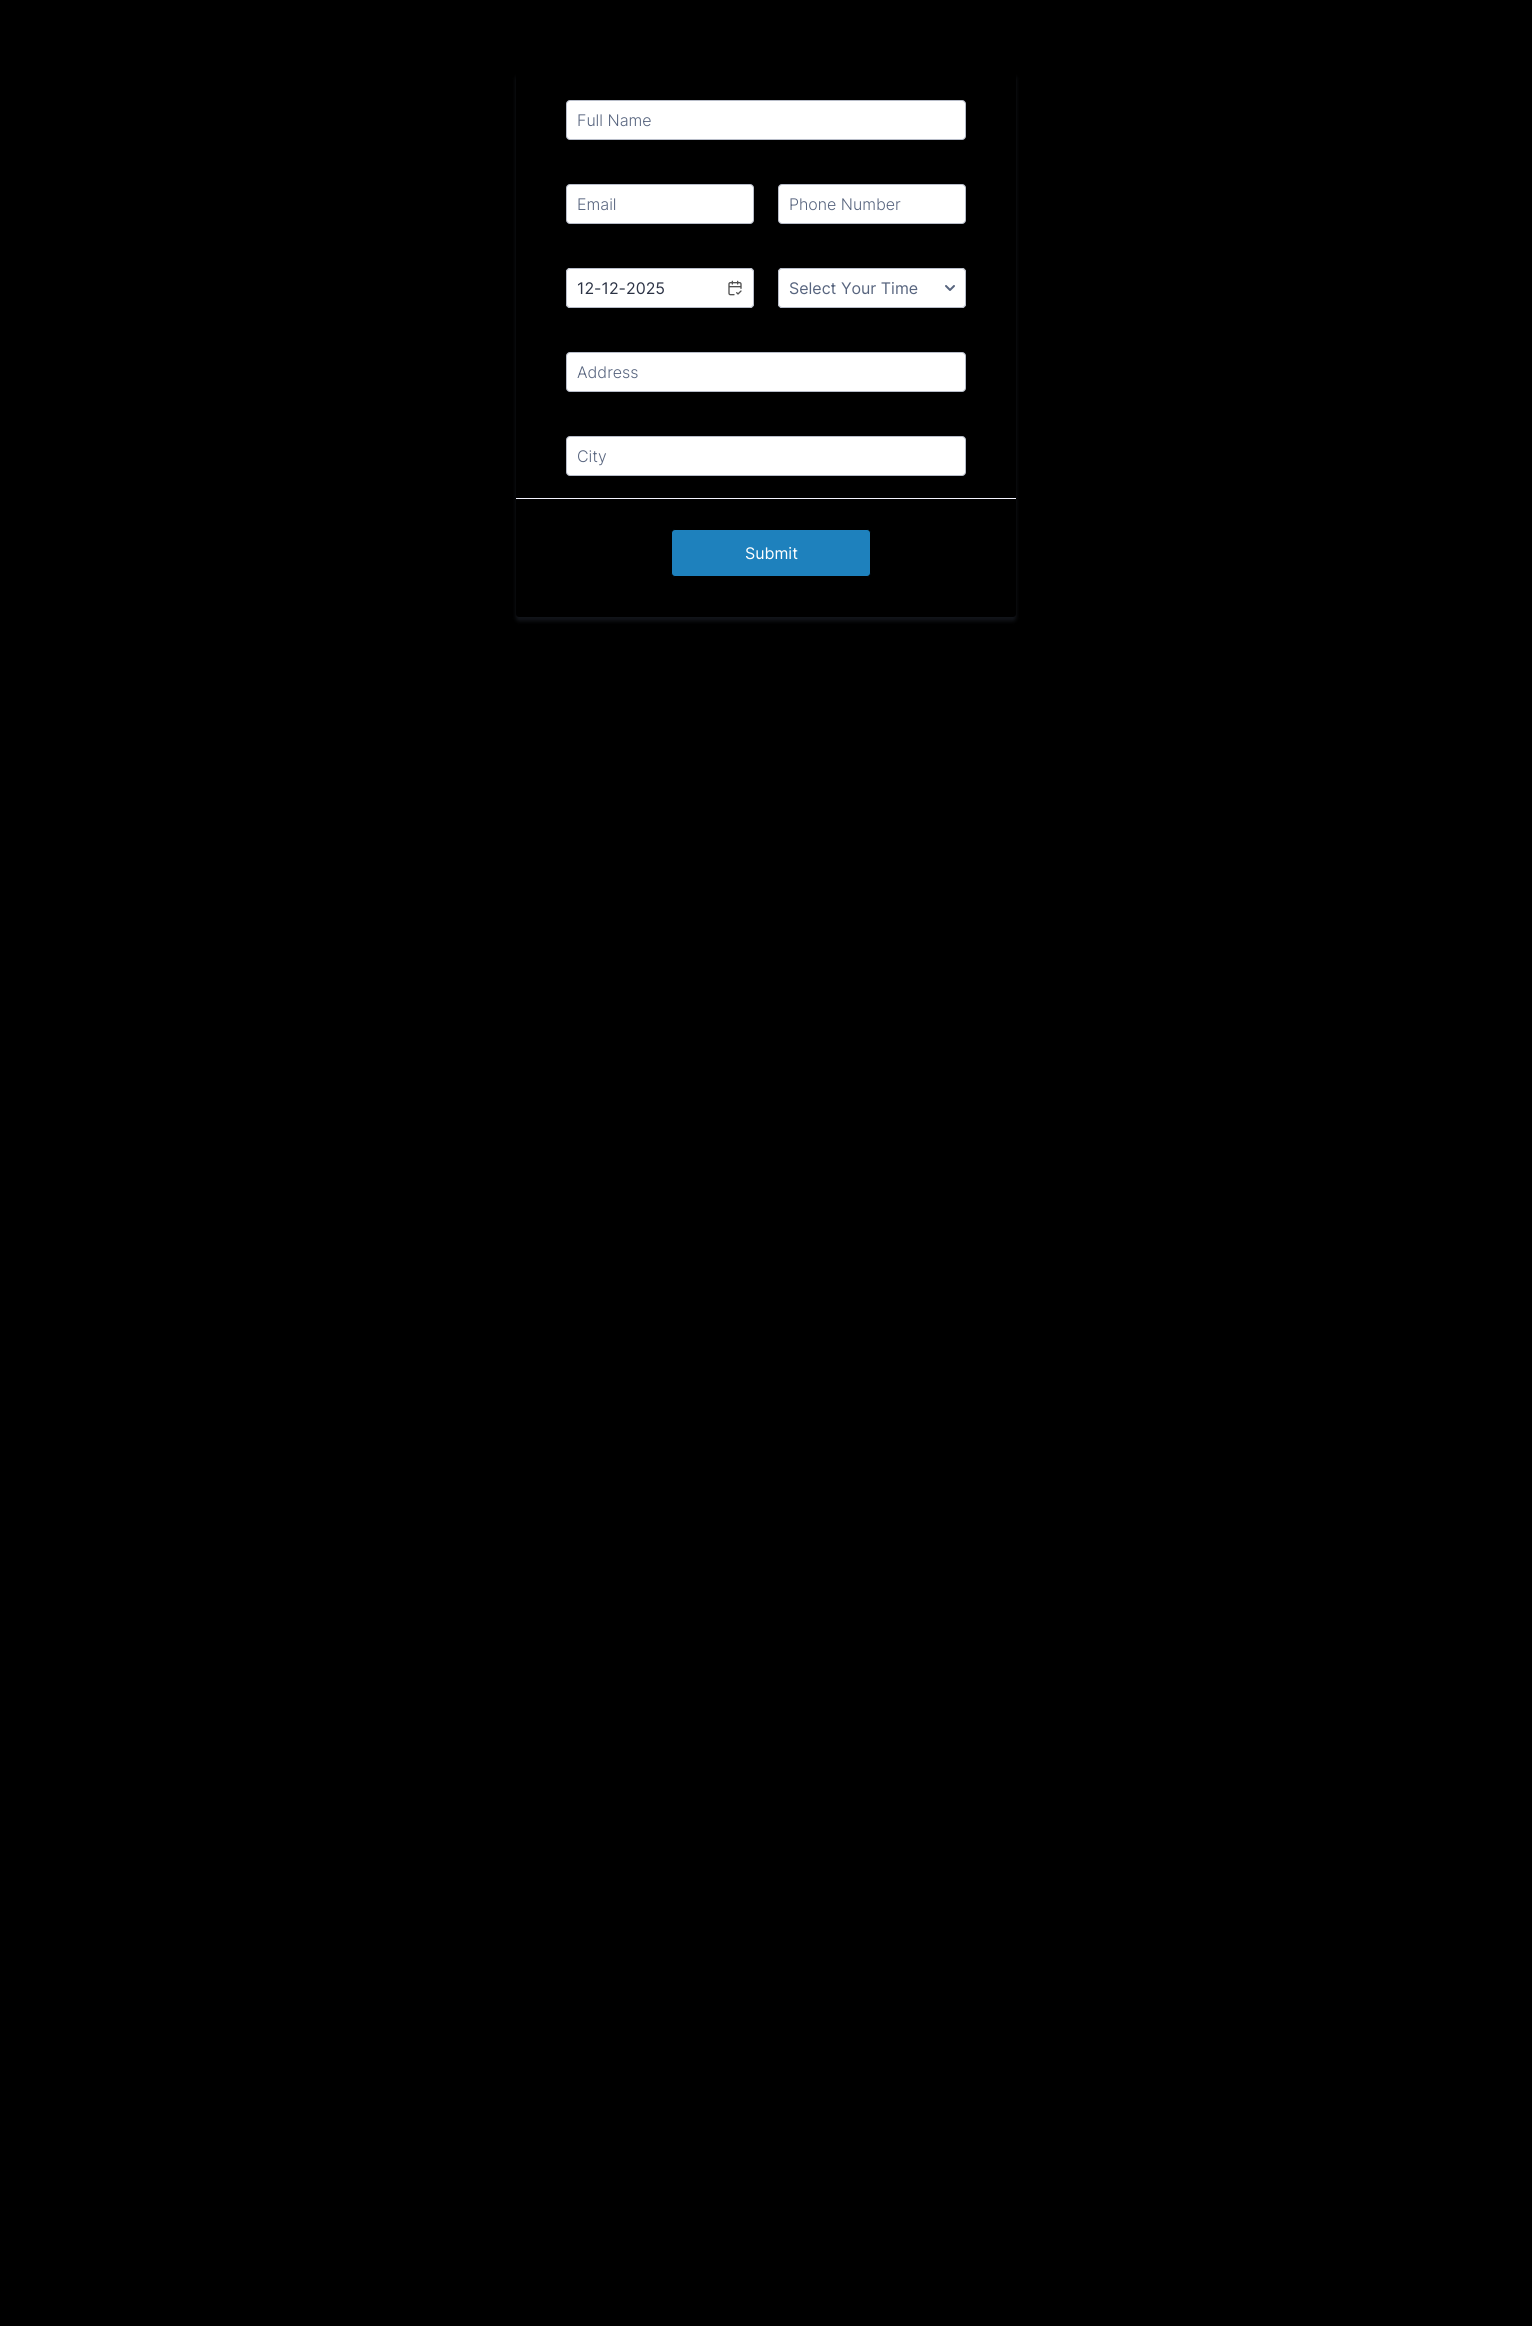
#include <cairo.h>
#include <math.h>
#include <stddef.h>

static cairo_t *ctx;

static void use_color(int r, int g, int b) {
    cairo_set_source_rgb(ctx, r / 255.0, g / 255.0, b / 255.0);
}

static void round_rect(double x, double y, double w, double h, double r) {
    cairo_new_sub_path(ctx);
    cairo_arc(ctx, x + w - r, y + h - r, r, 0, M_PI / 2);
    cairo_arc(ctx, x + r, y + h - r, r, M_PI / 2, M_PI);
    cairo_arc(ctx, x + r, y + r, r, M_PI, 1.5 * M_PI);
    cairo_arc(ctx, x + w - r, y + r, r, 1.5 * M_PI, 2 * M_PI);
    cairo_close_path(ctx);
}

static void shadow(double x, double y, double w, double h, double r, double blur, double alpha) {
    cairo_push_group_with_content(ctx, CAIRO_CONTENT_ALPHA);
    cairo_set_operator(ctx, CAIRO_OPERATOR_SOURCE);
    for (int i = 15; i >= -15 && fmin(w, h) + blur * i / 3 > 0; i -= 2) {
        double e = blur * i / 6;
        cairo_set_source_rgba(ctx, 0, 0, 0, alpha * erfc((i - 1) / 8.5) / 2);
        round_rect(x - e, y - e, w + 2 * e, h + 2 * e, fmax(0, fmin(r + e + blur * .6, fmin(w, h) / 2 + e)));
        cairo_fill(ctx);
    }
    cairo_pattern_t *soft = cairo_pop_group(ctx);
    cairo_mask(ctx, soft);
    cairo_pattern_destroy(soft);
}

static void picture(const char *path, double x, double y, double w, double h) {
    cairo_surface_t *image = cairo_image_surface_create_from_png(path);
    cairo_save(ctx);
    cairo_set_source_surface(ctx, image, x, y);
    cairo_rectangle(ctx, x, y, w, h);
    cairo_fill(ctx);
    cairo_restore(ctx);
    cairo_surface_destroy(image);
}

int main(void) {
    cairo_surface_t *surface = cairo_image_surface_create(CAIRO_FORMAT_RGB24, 1532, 2326);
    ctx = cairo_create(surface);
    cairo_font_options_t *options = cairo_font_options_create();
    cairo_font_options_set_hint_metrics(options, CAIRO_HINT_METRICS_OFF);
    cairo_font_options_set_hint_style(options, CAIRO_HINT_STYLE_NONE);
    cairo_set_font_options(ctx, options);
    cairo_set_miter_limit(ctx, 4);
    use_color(0, 0, 0);
    cairo_paint(ctx);
    use_color(87, 100, 126);
    shadow(516, 76, 500, 545, 3, 2, 0.21);
    use_color(0, 0, 0);
    round_rect(516, 72, 500, 545, 3);
    cairo_fill(ctx);
    use_color(255, 255, 255);
    round_rect(566.5, 100.5, 399, 39, 3.5);
    cairo_fill_preserve(ctx);
    use_color(184, 189, 201);
    cairo_set_line_width(ctx, 1);
    cairo_stroke(ctx);
    cairo_select_font_face(ctx, "Inter Light", CAIRO_FONT_SLANT_NORMAL, CAIRO_FONT_WEIGHT_NORMAL);
    cairo_set_font_size(ctx, 16);
    use_color(87, 100, 126);
    cairo_move_to(ctx, 577, 126);
    cairo_show_text(ctx, "Full Name");
    use_color(255, 255, 255);
    round_rect(566.5, 184.5, 187, 39, 3.5);
    cairo_fill_preserve(ctx);
    use_color(184, 189, 201);
    cairo_stroke(ctx);
    use_color(87, 100, 126);
    cairo_move_to(ctx, 577, 210);
    cairo_show_text(ctx, "Email");
    use_color(255, 255, 255);
    round_rect(778.5, 184.5, 187, 39, 3.5);
    cairo_fill_preserve(ctx);
    use_color(184, 189, 201);
    cairo_stroke(ctx);
    use_color(87, 100, 126);
    cairo_move_to(ctx, 789, 210);
    cairo_show_text(ctx, "Phone Number");
    use_color(255, 255, 255);
    round_rect(566, 268, 188, 40, 4);
    cairo_fill(ctx);
    picture("img1.png", 728, 280, 14, 16);
    round_rect(566.5, 268.5, 187, 39, 3.5);
    use_color(184, 189, 201);
    cairo_stroke(ctx);
    cairo_select_font_face(ctx, "Inter", CAIRO_FONT_SLANT_NORMAL, CAIRO_FONT_WEIGHT_NORMAL);
    use_color(44, 51, 69);
    cairo_move_to(ctx, 577, 294);
    cairo_show_text(ctx, "12-12-2025");
    use_color(255, 255, 255);
    round_rect(778, 268, 188, 40, 4);
    cairo_fill(ctx);
    cairo_new_path(ctx);
    cairo_move_to(ctx, 946, 286);
    cairo_line_to(ctx, 950, 290);
    cairo_line_to(ctx, 954, 286);
    use_color(87, 100, 126);
    cairo_set_line_width(ctx, 2);
    cairo_set_line_cap(ctx, CAIRO_LINE_CAP_ROUND);
    cairo_set_line_join(ctx, CAIRO_LINE_JOIN_ROUND);
    cairo_stroke(ctx);
    round_rect(778.5, 268.5, 187, 39, 3.5);
    use_color(184, 189, 201);
    cairo_set_line_width(ctx, 1);
    cairo_set_line_cap(ctx, CAIRO_LINE_CAP_BUTT);
    cairo_set_line_join(ctx, CAIRO_LINE_JOIN_MITER);
    cairo_stroke(ctx);
    use_color(87, 100, 126);
    cairo_move_to(ctx, 789, 294);
    cairo_show_text(ctx, "Select Your Time");
    use_color(255, 255, 255);
    round_rect(566.5, 352.5, 399, 39, 3.5);
    cairo_fill_preserve(ctx);
    use_color(184, 189, 201);
    cairo_stroke(ctx);
    cairo_select_font_face(ctx, "Inter Light", CAIRO_FONT_SLANT_NORMAL, CAIRO_FONT_WEIGHT_NORMAL);
    use_color(87, 100, 126);
    cairo_move_to(ctx, 577, 378);
    cairo_show_text(ctx, "Address");
    use_color(255, 255, 255);
    round_rect(566.5, 436.5, 399, 39, 3.5);
    cairo_fill_preserve(ctx);
    use_color(184, 189, 201);
    cairo_stroke(ctx);
    use_color(87, 100, 126);
    cairo_move_to(ctx, 577, 462);
    cairo_show_text(ctx, "City");
    use_color(243, 243, 254);
    cairo_rectangle(ctx, 516, 498, 500, 1);
    cairo_fill(ctx);
    use_color(30, 129, 189);
    round_rect(671.5, 529.5, 199, 47, 3.5);
    cairo_fill_preserve(ctx);
    use_color(0, 0, 0);
    cairo_stroke(ctx);
    cairo_select_font_face(ctx, "Inter", CAIRO_FONT_SLANT_NORMAL, CAIRO_FONT_WEIGHT_NORMAL);
    use_color(255, 255, 255);
    cairo_move_to(ctx, 745, 559);
    cairo_show_text(ctx, "Submit");
    cairo_surface_write_to_png(surface, "result.png");
    cairo_font_options_destroy(options);
    cairo_destroy(ctx);
    cairo_surface_destroy(surface);
    return 0;
}
